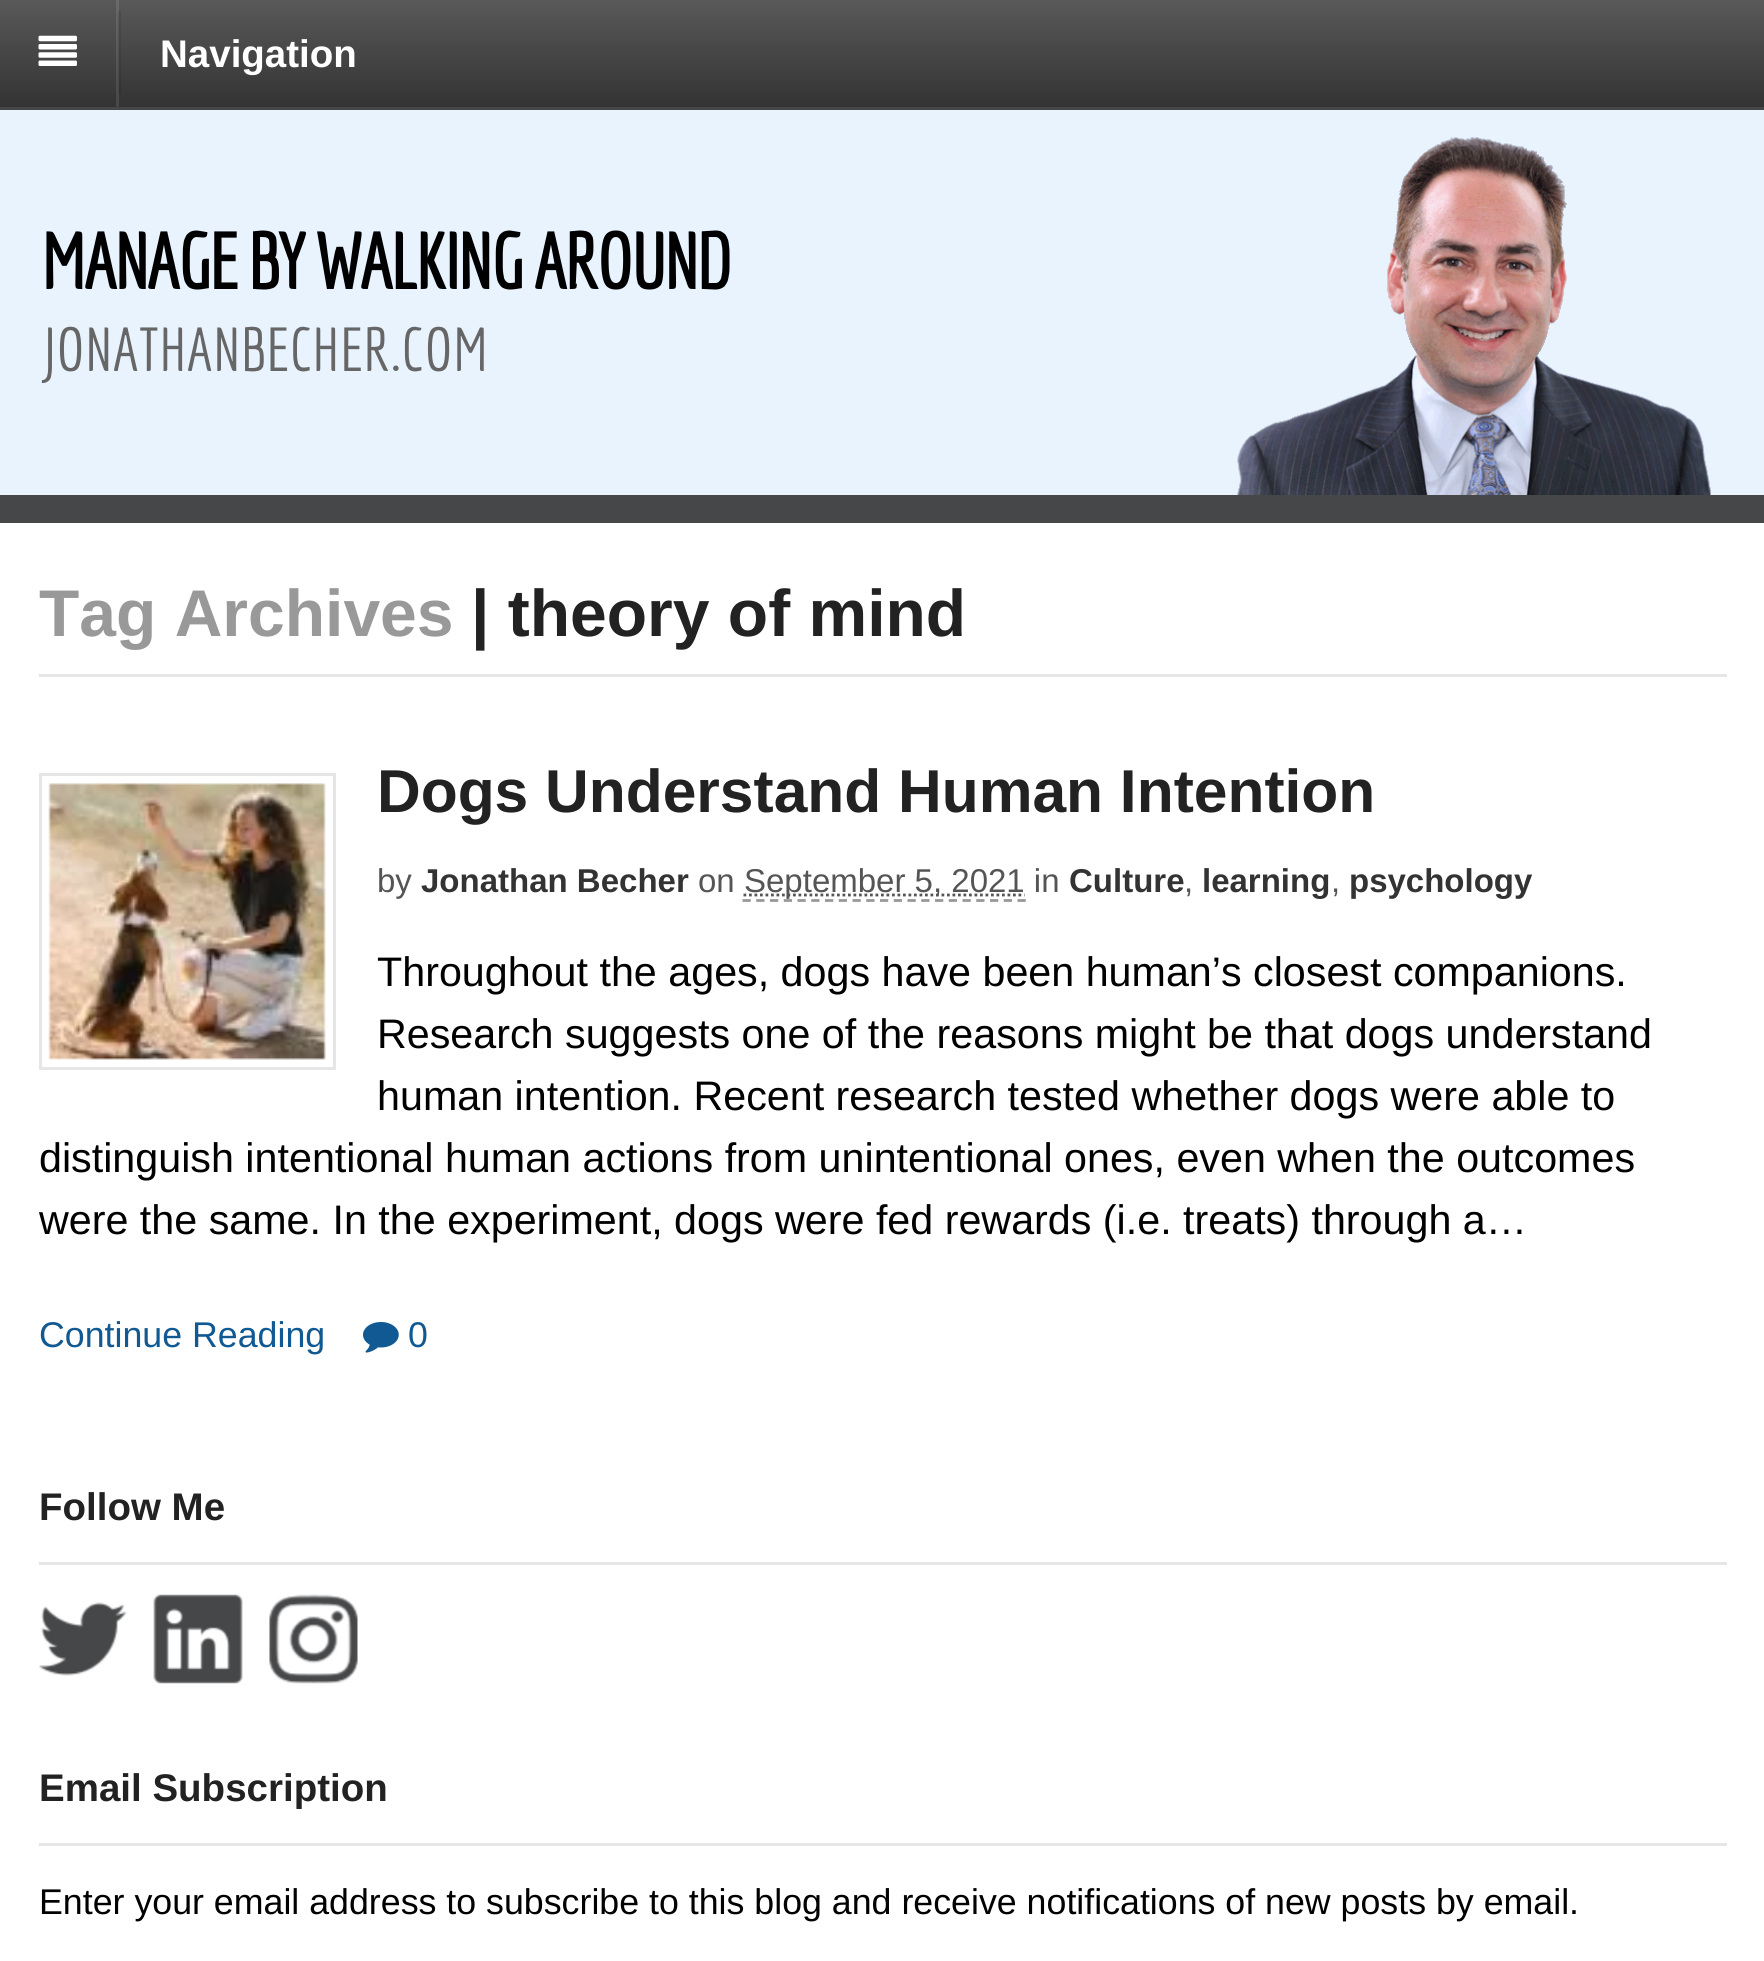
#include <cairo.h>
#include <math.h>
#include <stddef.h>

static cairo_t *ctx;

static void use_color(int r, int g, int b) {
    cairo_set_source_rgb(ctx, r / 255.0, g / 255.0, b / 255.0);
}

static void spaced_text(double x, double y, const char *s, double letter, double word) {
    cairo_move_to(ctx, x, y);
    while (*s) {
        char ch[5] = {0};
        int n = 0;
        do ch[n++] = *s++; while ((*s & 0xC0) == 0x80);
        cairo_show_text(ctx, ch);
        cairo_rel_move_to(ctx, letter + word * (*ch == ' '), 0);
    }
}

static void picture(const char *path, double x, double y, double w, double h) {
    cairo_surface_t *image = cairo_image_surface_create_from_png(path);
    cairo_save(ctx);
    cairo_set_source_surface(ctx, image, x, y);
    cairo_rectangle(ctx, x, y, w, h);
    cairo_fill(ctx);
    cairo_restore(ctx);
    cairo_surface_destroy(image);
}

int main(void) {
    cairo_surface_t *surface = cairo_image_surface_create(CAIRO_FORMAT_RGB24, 1764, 1961);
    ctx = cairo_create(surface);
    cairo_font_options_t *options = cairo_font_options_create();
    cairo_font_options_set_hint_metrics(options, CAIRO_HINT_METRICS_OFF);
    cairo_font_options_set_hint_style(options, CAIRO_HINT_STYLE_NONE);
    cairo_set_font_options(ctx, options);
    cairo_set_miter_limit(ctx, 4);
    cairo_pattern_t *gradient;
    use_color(255, 255, 255);
    cairo_paint(ctx);
    gradient = cairo_pattern_create_linear(883, 0, 883, 107);
    cairo_pattern_add_color_stop_rgba(gradient, 0, 0.349, 0.349, 0.349, 1);
    cairo_pattern_add_color_stop_rgba(gradient, 1, 0.2, 0.2, 0.2, 1);
    cairo_set_source(ctx, gradient);
    cairo_pattern_destroy(gradient);
    cairo_rectangle(ctx, 0, 0, 1764, 107);
    cairo_fill(ctx);
    gradient = cairo_pattern_create_linear(883, 0, 883, 107);
    cairo_pattern_add_color_stop_rgba(gradient, 0, 0.314, 0.314, 0.314, 1);
    cairo_pattern_add_color_stop_rgba(gradient, 1, 0.18, 0.18, 0.18, 1);
    cairo_set_source(ctx, gradient);
    cairo_pattern_destroy(gradient);
    cairo_rectangle(ctx, 119, 11, 2, 83);
    cairo_fill(ctx);
    gradient = cairo_pattern_create_linear(883, 0, 883, 107);
    cairo_pattern_add_color_stop_rgba(gradient, 0, 0.416, 0.416, 0.416, 1);
    cairo_pattern_add_color_stop_rgba(gradient, 1, 0.278, 0.278, 0.278, 1);
    cairo_set_source(ctx, gradient);
    cairo_pattern_destroy(gradient);
    cairo_rectangle(ctx, 116, 0, 3, 107);
    cairo_fill(ctx);
    gradient = cairo_pattern_create_linear(883, 0, 883, 107);
    cairo_pattern_add_color_stop_rgba(gradient, 0, 0.373, 0.373, 0.373, 1);
    cairo_pattern_add_color_stop_rgba(gradient, 1, 0.251, 0.251, 0.251, 1);
    cairo_set_source(ctx, gradient);
    cairo_pattern_destroy(gradient);
    cairo_rectangle(ctx, 118, 11, 1, 83);
    cairo_fill(ctx);
    use_color(71, 71, 71);
    cairo_rectangle(ctx, 0, 107, 1764, 3);
    cairo_fill(ctx);
    picture("img1.png", 38, 35, 39, 31);
    cairo_select_font_face(ctx, "Liberation Sans", CAIRO_FONT_SLANT_NORMAL, CAIRO_FONT_WEIGHT_BOLD);
    cairo_set_font_size(ctx, 38.5);
    use_color(255, 255, 255);
    cairo_move_to(ctx, 160, 67);
    cairo_show_text(ctx, "Navigation");
    use_color(232, 243, 254);
    cairo_rectangle(ctx, 0, 110, 1764, 385);
    cairo_fill(ctx);
    use_color(70, 71, 73);
    cairo_rectangle(ctx, 0, 495, 1764, 28);
    cairo_fill(ctx);
    picture("img2.png", 1237, 137, 474, 358);
    cairo_select_font_face(ctx, "Economica", CAIRO_FONT_SLANT_NORMAL, CAIRO_FONT_WEIGHT_BOLD);
    cairo_set_font_size(ctx, 77);
    use_color(0, 0, 0);
    spaced_text(41, 289, "MANAGE BY WALKING AROUND", -2.75, 0);
    cairo_select_font_face(ctx, "Economica", CAIRO_FONT_SLANT_NORMAL, CAIRO_FONT_WEIGHT_NORMAL);
    cairo_set_font_size(ctx, 60.5);
    use_color(102, 102, 102);
    cairo_move_to(ctx, 41, 371);
    cairo_show_text(ctx, "JONATHANBECHER.COM");
    use_color(230, 230, 230);
    cairo_rectangle(ctx, 39, 674, 1688, 3);
    cairo_fill(ctx);
    cairo_select_font_face(ctx, "Liberation Sans", CAIRO_FONT_SLANT_NORMAL, CAIRO_FONT_WEIGHT_BOLD);
    cairo_set_font_size(ctx, 66);
    use_color(153, 153, 153);
    cairo_move_to(ctx, 39, 636);
    cairo_show_text(ctx, "Tag Archives");
    use_color(34, 34, 34);
    cairo_move_to(ctx, 471, 636);
    cairo_show_text(ctx, "| theory of mind");
    cairo_rectangle(ctx, 40.5, 774.5, 294, 294);
    use_color(230, 230, 230);
    cairo_set_line_width(ctx, 3);
    cairo_stroke(ctx);
    picture("img3.png", 48, 783, 278, 277);
    cairo_set_font_size(ctx, 60.5);
    use_color(34, 34, 34);
    cairo_move_to(ctx, 377, 812);
    cairo_show_text(ctx, "Dogs Understand Human Intention");
    cairo_select_font_face(ctx, "Liberation Sans", CAIRO_FONT_SLANT_NORMAL, CAIRO_FONT_WEIGHT_NORMAL);
    cairo_set_font_size(ctx, 33);
    use_color(85, 85, 85);
    cairo_move_to(ctx, 377, 892);
    cairo_show_text(ctx, "by");
    cairo_select_font_face(ctx, "Liberation Sans", CAIRO_FONT_SLANT_NORMAL, CAIRO_FONT_WEIGHT_BOLD);
    use_color(51, 51, 51);
    cairo_move_to(ctx, 421, 892);
    cairo_show_text(ctx, "Jonathan Becher");
    cairo_select_font_face(ctx, "Liberation Sans", CAIRO_FONT_SLANT_NORMAL, CAIRO_FONT_WEIGHT_NORMAL);
    use_color(85, 85, 85);
    cairo_move_to(ctx, 698, 892);
    cairo_show_text(ctx, "on");
    cairo_new_path(ctx);
    cairo_move_to(ctx, 743.5, 895);
    cairo_line_to(ctx, 1024.5, 895);
    cairo_set_line_width(ctx, 2.8);
    cairo_set_dash(ctx, (double[]){2.75, 2.75}, 2, 0);
    cairo_stroke(ctx);
    cairo_move_to(ctx, 744, 892);
    cairo_show_text(ctx, "September 5, 2021 in");
    cairo_new_path(ctx);
    cairo_move_to(ctx, 742.5, 900.5);
    cairo_line_to(ctx, 1026, 900.5);
    use_color(153, 153, 153);
    cairo_set_dash(ctx, (double[]){8.25, 5.5}, 2, 0);
    cairo_stroke(ctx);
    cairo_select_font_face(ctx, "Liberation Sans", CAIRO_FONT_SLANT_NORMAL, CAIRO_FONT_WEIGHT_BOLD);
    use_color(51, 51, 51);
    cairo_move_to(ctx, 1069, 892);
    cairo_show_text(ctx, "Culture");
    cairo_select_font_face(ctx, "Liberation Sans", CAIRO_FONT_SLANT_NORMAL, CAIRO_FONT_WEIGHT_NORMAL);
    use_color(85, 85, 85);
    cairo_move_to(ctx, 1184, 892);
    cairo_show_text(ctx, ",");
    cairo_select_font_face(ctx, "Liberation Sans", CAIRO_FONT_SLANT_NORMAL, CAIRO_FONT_WEIGHT_BOLD);
    use_color(51, 51, 51);
    cairo_move_to(ctx, 1202, 892);
    cairo_show_text(ctx, "learning");
    cairo_select_font_face(ctx, "Liberation Sans", CAIRO_FONT_SLANT_NORMAL, CAIRO_FONT_WEIGHT_NORMAL);
    use_color(85, 85, 85);
    cairo_move_to(ctx, 1331, 892);
    cairo_show_text(ctx, ",");
    cairo_select_font_face(ctx, "Liberation Sans", CAIRO_FONT_SLANT_NORMAL, CAIRO_FONT_WEIGHT_BOLD);
    use_color(51, 51, 51);
    cairo_move_to(ctx, 1349, 892);
    cairo_show_text(ctx, "psychology");
    cairo_select_font_face(ctx, "Liberation Sans", CAIRO_FONT_SLANT_NORMAL, CAIRO_FONT_WEIGHT_NORMAL);
    cairo_set_font_size(ctx, 41.25);
    use_color(0, 0, 0);
    cairo_move_to(ctx, 377, 986);
    cairo_show_text(ctx, "Throughout the ages, dogs have been human’s closest companions.");
    cairo_move_to(ctx, 377, 1048);
    cairo_show_text(ctx, "Research suggests one of the reasons might be that dogs understand");
    cairo_move_to(ctx, 377, 1110);
    cairo_show_text(ctx, "human intention. Recent research tested whether dogs were able to");
    cairo_move_to(ctx, 39, 1172);
    cairo_show_text(ctx, "distinguish intentional human actions from unintentional ones, even when the outcomes");
    cairo_move_to(ctx, 39, 1234);
    cairo_show_text(ctx, "were the same. In the experiment, dogs were fed rewards (i.e. treats) through a…");
    cairo_set_font_size(ctx, 35.75);
    use_color(16, 89, 147);
    cairo_move_to(ctx, 39, 1347);
    cairo_show_text(ctx, "Continue Reading");
    picture("img4.png", 363, 1322, 36, 31);
    cairo_move_to(ctx, 408, 1347);
    cairo_show_text(ctx, "0");
    use_color(230, 230, 230);
    cairo_rectangle(ctx, 39, 1562, 1688, 3);
    cairo_fill(ctx);
    cairo_select_font_face(ctx, "Liberation Sans", CAIRO_FONT_SLANT_NORMAL, CAIRO_FONT_WEIGHT_BOLD);
    cairo_set_font_size(ctx, 38.5);
    use_color(34, 34, 34);
    cairo_move_to(ctx, 39, 1520);
    cairo_show_text(ctx, "Follow Me");
    picture("img5.png", 38, 1602, 89, 74);
    picture("img6.png", 153, 1594, 90, 90);
    picture("img7.png", 269, 1594, 89, 90);
    use_color(230, 230, 230);
    cairo_rectangle(ctx, 39, 1843, 1688, 3);
    cairo_fill(ctx);
    use_color(34, 34, 34);
    cairo_move_to(ctx, 39, 1801);
    cairo_show_text(ctx, "Email Subscription");
    cairo_select_font_face(ctx, "Liberation Sans", CAIRO_FONT_SLANT_NORMAL, CAIRO_FONT_WEIGHT_NORMAL);
    cairo_set_font_size(ctx, 35.75);
    use_color(0, 0, 0);
    cairo_move_to(ctx, 39, 1914);
    cairo_show_text(ctx, "Enter your email address to subscribe to this blog and receive notifications of new posts by email.");
    cairo_surface_write_to_png(surface, "result.png");
    cairo_font_options_destroy(options);
    cairo_destroy(ctx);
    cairo_surface_destroy(surface);
    return 0;
}
